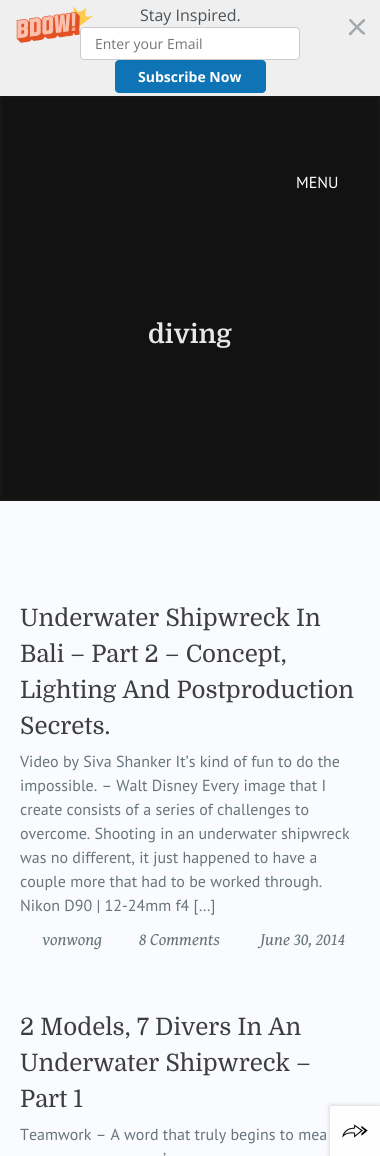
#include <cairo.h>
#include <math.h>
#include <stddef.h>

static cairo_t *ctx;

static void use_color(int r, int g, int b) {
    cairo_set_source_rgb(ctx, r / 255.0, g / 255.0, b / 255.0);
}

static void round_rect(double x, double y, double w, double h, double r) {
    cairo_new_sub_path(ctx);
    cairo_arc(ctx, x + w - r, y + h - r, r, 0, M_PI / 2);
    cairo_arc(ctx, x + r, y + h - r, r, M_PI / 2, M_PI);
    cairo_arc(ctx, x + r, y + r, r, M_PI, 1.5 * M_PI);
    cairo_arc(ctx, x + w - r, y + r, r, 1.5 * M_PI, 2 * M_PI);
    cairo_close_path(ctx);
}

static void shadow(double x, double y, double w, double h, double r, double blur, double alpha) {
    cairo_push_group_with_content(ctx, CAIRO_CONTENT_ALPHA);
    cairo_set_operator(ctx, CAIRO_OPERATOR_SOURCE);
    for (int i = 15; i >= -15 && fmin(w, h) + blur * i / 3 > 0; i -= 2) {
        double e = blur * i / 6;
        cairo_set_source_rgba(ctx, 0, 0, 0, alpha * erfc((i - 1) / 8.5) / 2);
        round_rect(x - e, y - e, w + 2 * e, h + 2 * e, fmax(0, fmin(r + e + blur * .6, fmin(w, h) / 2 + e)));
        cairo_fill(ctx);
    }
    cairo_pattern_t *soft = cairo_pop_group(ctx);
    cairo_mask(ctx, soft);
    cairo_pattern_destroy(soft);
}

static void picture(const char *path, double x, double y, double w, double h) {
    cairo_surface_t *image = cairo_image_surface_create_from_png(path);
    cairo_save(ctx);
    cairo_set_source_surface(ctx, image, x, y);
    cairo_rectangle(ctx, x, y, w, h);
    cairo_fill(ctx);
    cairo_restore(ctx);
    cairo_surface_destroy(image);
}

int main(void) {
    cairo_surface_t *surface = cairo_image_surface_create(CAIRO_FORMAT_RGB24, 380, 1156);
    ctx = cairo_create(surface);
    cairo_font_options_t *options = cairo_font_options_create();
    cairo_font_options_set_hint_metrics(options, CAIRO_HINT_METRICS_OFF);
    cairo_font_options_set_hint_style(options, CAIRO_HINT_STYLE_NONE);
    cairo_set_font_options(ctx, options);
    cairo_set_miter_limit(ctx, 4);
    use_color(249, 251, 255);
    cairo_paint(ctx);
    use_color(30, 30, 30);
    cairo_rectangle(ctx, 0, 96, 380, 405);
    cairo_fill(ctx);
    cairo_save(ctx);
    cairo_rectangle(ctx, 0, 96, 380, 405);
    cairo_clip(ctx);
    use_color(0, 0, 0);
    shadow(0, 96, 380, 405, 0, 3, 0.4);
    cairo_restore(ctx);
    use_color(239, 239, 239);
    cairo_rectangle(ctx, 0, 0, 380, 96);
    cairo_fill(ctx);
    use_color(255, 255, 255);
    round_rect(80.5, 27.5, 219, 32, 3.5);
    cairo_fill_preserve(ctx);
    use_color(204, 204, 204);
    cairo_set_line_width(ctx, 1);
    cairo_stroke(ctx);
    picture("img1.png", 16, 6, 78, 37);
    cairo_select_font_face(ctx, "Open Sans", CAIRO_FONT_SLANT_NORMAL, CAIRO_FONT_WEIGHT_NORMAL);
    cairo_set_font_size(ctx, 16);
    use_color(73, 82, 89);
    cairo_move_to(ctx, 140, 21);
    cairo_show_text(ctx, "Stay Inspired.");
    use_color(164, 169, 172);
    cairo_new_path(ctx);
    cairo_move_to(ctx, 357, 25.5);
    cairo_line_to(ctx, 353, 21.5);
    cairo_curve_to(ctx, 352.5, 20.5, 350.5, 18, 349.5, 19.5);
    cairo_curve_to(ctx, 348.5, 21, 354.5, 26, 355.5, 27);
    cairo_line_to(ctx, 351.5, 31);
    cairo_curve_to(ctx, 351, 31.5, 347.5, 33.5, 349.5, 35);
    cairo_curve_to(ctx, 350.5, 36, 352.5, 33.5, 353, 32.5);
    cairo_line_to(ctx, 357, 28.5);
    cairo_curve_to(ctx, 358, 29.5, 363, 35.5, 364.5, 34.5);
    cairo_curve_to(ctx, 366, 33.5, 363.5, 31.5, 362.5, 31);
    cairo_line_to(ctx, 358.5, 27);
    cairo_line_to(ctx, 365, 21);
    cairo_curve_to(ctx, 365.5, 19.5, 364, 18.5, 363, 19.5);
    cairo_close_path(ctx);
    cairo_fill(ctx);
    cairo_new_path(ctx);
    cairo_move_to(ctx, 357, 25.5);
    cairo_curve_to(ctx, 358, 24.5, 363, 18.5, 364.5, 19.5);
    cairo_curve_to(ctx, 366, 20.5, 363.5, 22.5, 362.5, 23);
    cairo_line_to(ctx, 358.5, 27);
    cairo_line_to(ctx, 362.5, 31);
    cairo_curve_to(ctx, 363.5, 31.5, 366, 33.5, 364.5, 34.5);
    cairo_curve_to(ctx, 363, 35.5, 358, 29.5, 357, 28.5);
    cairo_line_to(ctx, 353, 32.5);
    cairo_curve_to(ctx, 352.5, 33.5, 350.5, 36, 349.5, 35);
    cairo_curve_to(ctx, 347.5, 33.5, 351, 31.5, 351.5, 31);
    cairo_line_to(ctx, 355.5, 27);
    cairo_line_to(ctx, 349.5, 21);
    cairo_curve_to(ctx, 349, 20.5, 349, 20, 349.5, 19.5);
    cairo_curve_to(ctx, 350, 19, 350.5, 19, 351, 19.5);
    cairo_close_path(ctx);
    cairo_fill(ctx);
    cairo_set_font_size(ctx, 14);
    use_color(117, 117, 117);
    cairo_move_to(ctx, 95, 49);
    cairo_show_text(ctx, "Enter your Email");
    use_color(15, 116, 181);
    round_rect(115, 60, 151, 33, 4);
    cairo_fill(ctx);
    cairo_select_font_face(ctx, "Open Sans", CAIRO_FONT_SLANT_NORMAL, CAIRO_FONT_WEIGHT_BOLD);
    use_color(255, 255, 255);
    cairo_move_to(ctx, 138, 82);
    cairo_show_text(ctx, "Subscribe Now");
    cairo_select_font_face(ctx, "PT Sans", CAIRO_FONT_SLANT_NORMAL, CAIRO_FONT_WEIGHT_NORMAL);
    cairo_set_font_size(ctx, 16);
    cairo_move_to(ctx, 296, 188);
    cairo_show_text(ctx, "MENU");
    cairo_select_font_face(ctx, "Domine", CAIRO_FONT_SLANT_NORMAL, CAIRO_FONT_WEIGHT_BOLD);
    cairo_set_font_size(ctx, 26.5);
    use_color(231, 231, 231);
    cairo_move_to(ctx, 148, 343);
    cairo_show_text(ctx, "diving");
    cairo_select_font_face(ctx, "Domine", CAIRO_FONT_SLANT_NORMAL, CAIRO_FONT_WEIGHT_NORMAL);
    cairo_set_font_size(ctx, 24);
    use_color(62, 62, 62);
    cairo_move_to(ctx, 20, 626);
    cairo_show_text(ctx, "Underwater Shipwreck In");
    cairo_move_to(ctx, 20, 662);
    cairo_show_text(ctx, "Bali – Part 2 – Concept,");
    cairo_move_to(ctx, 20, 698);
    cairo_show_text(ctx, "Lighting And Postproduction");
    cairo_move_to(ctx, 20, 734);
    cairo_show_text(ctx, "Secrets.");
    cairo_select_font_face(ctx, "PT Sans", CAIRO_FONT_SLANT_NORMAL, CAIRO_FONT_WEIGHT_NORMAL);
    cairo_set_font_size(ctx, 16);
    use_color(103, 116, 124);
    cairo_move_to(ctx, 20, 767);
    cairo_show_text(ctx, "Video by Siva Shanker It’s kind of fun to do the");
    cairo_move_to(ctx, 20, 791);
    cairo_show_text(ctx, "impossible. – Walt Disney Every image that I");
    cairo_move_to(ctx, 20, 815);
    cairo_show_text(ctx, "create consists of a series of challenges to");
    cairo_move_to(ctx, 20, 839);
    cairo_show_text(ctx, "overcome. Shooting in an underwater shipwreck");
    cairo_move_to(ctx, 20, 863);
    cairo_show_text(ctx, "was no different, it just happened to have a");
    cairo_move_to(ctx, 20, 887);
    cairo_show_text(ctx, "couple more that had to be worked through.");
    cairo_move_to(ctx, 20, 911);
    cairo_show_text(ctx, "Nikon D90 | 12-24mm f4 […]");
    cairo_select_font_face(ctx, "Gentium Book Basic", CAIRO_FONT_SLANT_ITALIC, CAIRO_FONT_WEIGHT_NORMAL);
    cairo_set_font_size(ctx, 17.5);
    cairo_move_to(ctx, 42, 945);
    cairo_show_text(ctx, "vonwong");
    cairo_move_to(ctx, 139, 945);
    cairo_show_text(ctx, "8 Comments");
    cairo_move_to(ctx, 260, 945);
    cairo_show_text(ctx, "June 30, 2014");
    cairo_select_font_face(ctx, "Domine", CAIRO_FONT_SLANT_NORMAL, CAIRO_FONT_WEIGHT_NORMAL);
    cairo_set_font_size(ctx, 24);
    use_color(62, 62, 62);
    cairo_move_to(ctx, 20, 1035);
    cairo_show_text(ctx, "2 Models, 7 Divers In An");
    cairo_move_to(ctx, 20, 1071);
    cairo_show_text(ctx, "Underwater Shipwreck –");
    cairo_move_to(ctx, 20, 1107);
    cairo_show_text(ctx, "Part 1");
    cairo_select_font_face(ctx, "PT Sans", CAIRO_FONT_SLANT_NORMAL, CAIRO_FONT_WEIGHT_NORMAL);
    cairo_set_font_size(ctx, 16);
    use_color(103, 116, 124);
    cairo_move_to(ctx, 20, 1140);
    cairo_show_text(ctx, "Teamwork – A word that truly begins to mea");
    cairo_move_to(ctx, 163, 1164);
    cairo_show_text(ctx, "’");
    cairo_save(ctx);
    cairo_set_fill_rule(ctx, CAIRO_FILL_RULE_EVEN_ODD);
    cairo_new_path(ctx);
    cairo_move_to(ctx, 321, 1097);
    cairo_line_to(ctx, 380, 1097);
    cairo_line_to(ctx, 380, 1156);
    cairo_line_to(ctx, 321, 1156);
    cairo_close_path(ctx);
    cairo_move_to(ctx, 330, 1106);
    cairo_line_to(ctx, 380, 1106);
    cairo_line_to(ctx, 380, 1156);
    cairo_line_to(ctx, 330, 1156);
    cairo_close_path(ctx);
    cairo_clip(ctx);
    use_color(0, 0, 0);
    shadow(330, 1106, 50, 50, 0, 2.5, 0.2);
    cairo_restore(ctx);
    cairo_set_source_rgba(ctx, 1, 1, 1, 0.8);
    cairo_rectangle(ctx, 330, 1106, 50, 50);
    cairo_fill(ctx);
    picture("img2.png", 342, 1124, 26, 14);
    cairo_surface_write_to_png(surface, "result.png");
    cairo_font_options_destroy(options);
    cairo_destroy(ctx);
    cairo_surface_destroy(surface);
    return 0;
}
